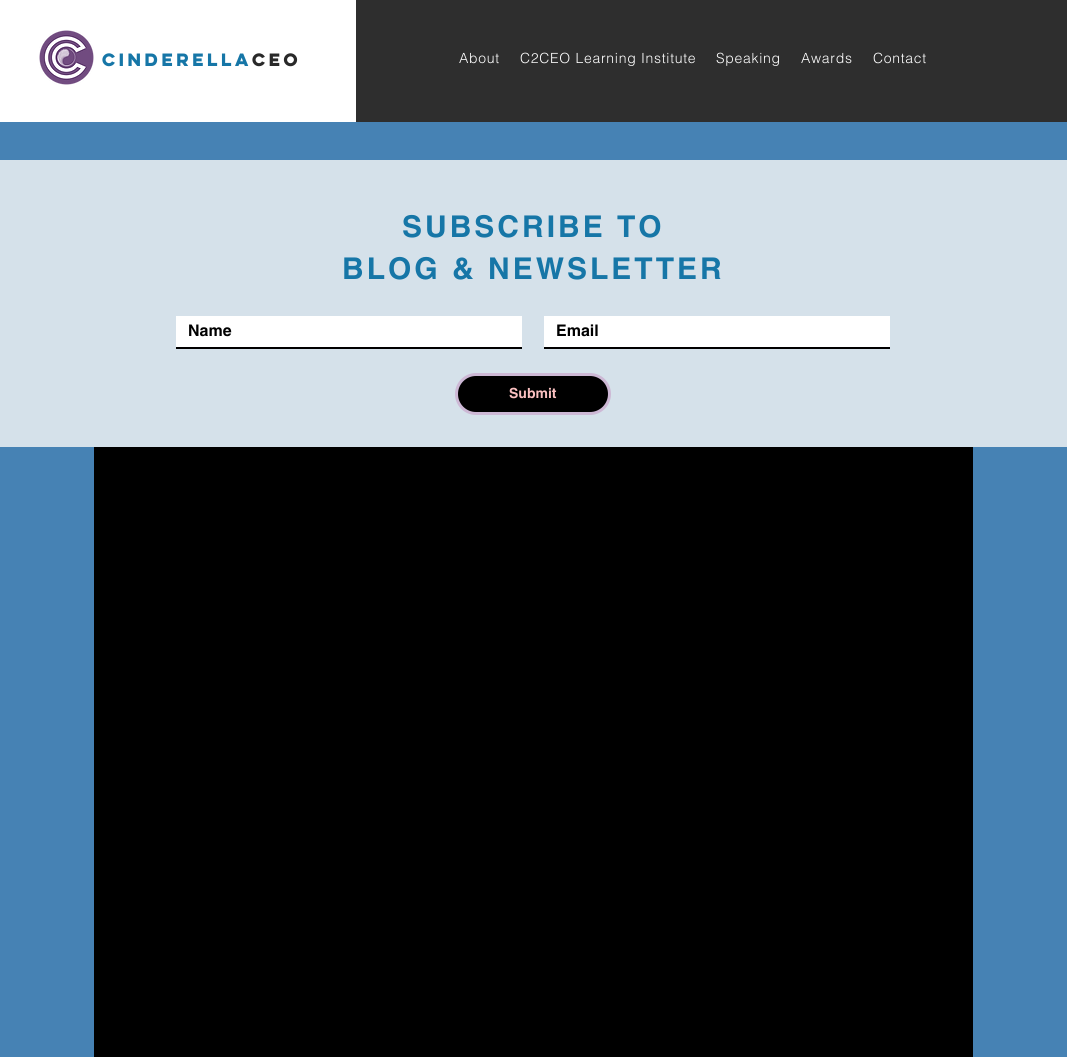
#include <cairo.h>
#include <math.h>
#include <stddef.h>

static cairo_t *ctx;

static void use_color(int r, int g, int b) {
    cairo_set_source_rgb(ctx, r / 255.0, g / 255.0, b / 255.0);
}

static void spaced_text(double x, double y, const char *s, double letter, double word) {
    cairo_move_to(ctx, x, y);
    while (*s) {
        char ch[5] = {0};
        int n = 0;
        do ch[n++] = *s++; while ((*s & 0xC0) == 0x80);
        cairo_show_text(ctx, ch);
        cairo_rel_move_to(ctx, letter + word * (*ch == ' '), 0);
    }
}

static void round_rect(double x, double y, double w, double h, double r) {
    cairo_new_sub_path(ctx);
    cairo_arc(ctx, x + w - r, y + h - r, r, 0, M_PI / 2);
    cairo_arc(ctx, x + r, y + h - r, r, M_PI / 2, M_PI);
    cairo_arc(ctx, x + r, y + r, r, M_PI, 1.5 * M_PI);
    cairo_arc(ctx, x + w - r, y + r, r, 1.5 * M_PI, 2 * M_PI);
    cairo_close_path(ctx);
}

static void picture(const char *path, double x, double y, double w, double h) {
    cairo_surface_t *image = cairo_image_surface_create_from_png(path);
    cairo_save(ctx);
    cairo_set_source_surface(ctx, image, x, y);
    cairo_rectangle(ctx, x, y, w, h);
    cairo_fill(ctx);
    cairo_restore(ctx);
    cairo_surface_destroy(image);
}

int main(void) {
    cairo_surface_t *surface = cairo_image_surface_create(CAIRO_FORMAT_RGB24, 1067, 1057);
    ctx = cairo_create(surface);
    cairo_font_options_t *options = cairo_font_options_create();
    cairo_font_options_set_hint_metrics(options, CAIRO_HINT_METRICS_OFF);
    cairo_font_options_set_hint_style(options, CAIRO_HINT_STYLE_NONE);
    cairo_set_font_options(ctx, options);
    cairo_set_miter_limit(ctx, 4);
    use_color(70, 130, 180);
    cairo_paint(ctx);
    use_color(255, 255, 255);
    cairo_rectangle(ctx, 0, 0, 356, 122);
    cairo_fill(ctx);
    picture("img1.png", 39, 30, 55, 55);
    cairo_select_font_face(ctx, "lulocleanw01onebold", CAIRO_FONT_SLANT_NORMAL, CAIRO_FONT_WEIGHT_BOLD);
    cairo_set_font_size(ctx, 16);
    use_color(22, 118, 167);
    cairo_move_to(ctx, 102, 66);
    cairo_show_text(ctx, "CINDERELLA");
    use_color(41, 41, 41);
    cairo_move_to(ctx, 252, 66);
    cairo_show_text(ctx, "CEO");
    use_color(46, 46, 46);
    cairo_rectangle(ctx, 356, 0, 711, 122);
    cairo_fill(ctx);
    cairo_select_font_face(ctx, "helvetica Light", CAIRO_FONT_SLANT_NORMAL, CAIRO_FONT_WEIGHT_NORMAL);
    cairo_set_font_size(ctx, 14);
    use_color(255, 255, 255);
    spaced_text(459, 63, "About", 0.7, 0);
    spaced_text(520, 63, "C2CEO Learning Institute", 0.7, 0);
    spaced_text(716, 63, "Speaking", 0.7, 0);
    spaced_text(801, 63, "Awards", 0.7, 0);
    spaced_text(873, 63, "Contact", 0.7, 0);
    use_color(213, 225, 234);
    cairo_rectangle(ctx, 0, 160, 1067, 287);
    cairo_fill(ctx);
    cairo_select_font_face(ctx, "helvetica", CAIRO_FONT_SLANT_NORMAL, CAIRO_FONT_WEIGHT_BOLD);
    cairo_set_font_size(ctx, 30);
    use_color(22, 118, 167);
    spaced_text(402, 237, "SUBSCRIBE TO", 3, 0);
    spaced_text(342, 279, "BLOG & NEWSLETTER", 3, 0);
    use_color(255, 255, 255);
    cairo_rectangle(ctx, 176, 316, 346, 31);
    cairo_fill(ctx);
    use_color(0, 0, 0);
    cairo_rectangle(ctx, 176, 347, 346, 2);
    cairo_fill(ctx);
    cairo_set_font_size(ctx, 16);
    cairo_move_to(ctx, 188, 336);
    cairo_show_text(ctx, "Name");
    use_color(255, 255, 255);
    cairo_rectangle(ctx, 544, 316, 346, 31);
    cairo_fill(ctx);
    use_color(0, 0, 0);
    cairo_rectangle(ctx, 544, 347, 346, 2);
    cairo_fill(ctx);
    cairo_move_to(ctx, 556, 336);
    cairo_show_text(ctx, "Email");
    round_rect(456.5, 374.5, 153, 39, 19.5);
    cairo_fill_preserve(ctx);
    use_color(205, 184, 213);
    cairo_set_line_width(ctx, 3);
    cairo_stroke(ctx);
    cairo_set_font_size(ctx, 14);
    use_color(250, 192, 192);
    cairo_move_to(ctx, 509, 398);
    cairo_show_text(ctx, "Submit");
    use_color(0, 0, 0);
    cairo_rectangle(ctx, 94, 447, 879, 610);
    cairo_fill(ctx);
    cairo_surface_write_to_png(surface, "result.png");
    cairo_font_options_destroy(options);
    cairo_destroy(ctx);
    cairo_surface_destroy(surface);
    return 0;
}
